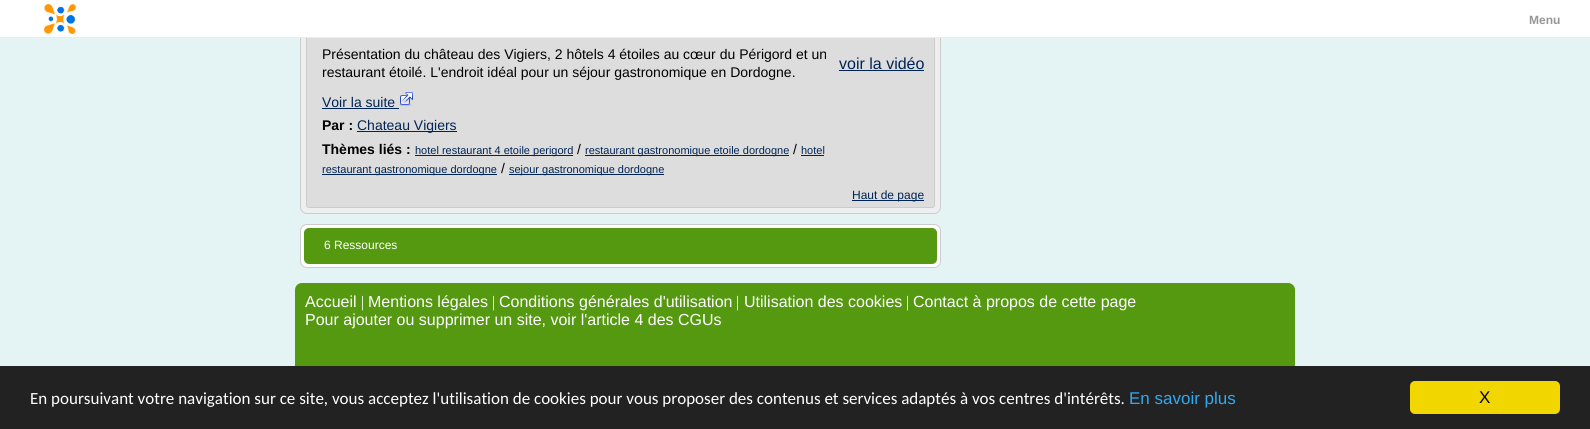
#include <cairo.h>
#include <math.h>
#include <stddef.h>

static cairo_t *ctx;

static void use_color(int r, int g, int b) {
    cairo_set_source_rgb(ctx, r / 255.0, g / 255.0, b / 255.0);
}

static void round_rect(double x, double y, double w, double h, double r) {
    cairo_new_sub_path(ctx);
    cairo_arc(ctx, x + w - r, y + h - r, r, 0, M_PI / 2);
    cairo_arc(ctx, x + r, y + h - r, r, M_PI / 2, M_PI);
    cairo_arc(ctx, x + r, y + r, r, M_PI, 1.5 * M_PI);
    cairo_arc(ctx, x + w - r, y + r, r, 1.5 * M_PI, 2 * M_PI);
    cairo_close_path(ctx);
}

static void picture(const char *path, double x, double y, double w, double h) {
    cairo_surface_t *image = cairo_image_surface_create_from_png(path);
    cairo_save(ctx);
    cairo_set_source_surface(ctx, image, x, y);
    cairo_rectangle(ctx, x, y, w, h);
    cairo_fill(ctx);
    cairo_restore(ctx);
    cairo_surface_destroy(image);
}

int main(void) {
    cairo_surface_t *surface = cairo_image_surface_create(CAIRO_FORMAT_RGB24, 1590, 429);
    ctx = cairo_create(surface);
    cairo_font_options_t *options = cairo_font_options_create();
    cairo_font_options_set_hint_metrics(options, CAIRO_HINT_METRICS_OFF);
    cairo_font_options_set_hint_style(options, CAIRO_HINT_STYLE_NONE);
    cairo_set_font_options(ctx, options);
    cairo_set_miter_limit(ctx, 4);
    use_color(228, 244, 244);
    cairo_paint(ctx);
    use_color(238, 238, 238);
    round_rect(300.5, -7.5, 640, 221, 6.5);
    cairo_fill_preserve(ctx);
    use_color(204, 204, 204);
    cairo_set_line_width(ctx, 1);
    cairo_stroke(ctx);
    use_color(221, 221, 221);
    round_rect(306.5, 6.5, 628, 201, 2.5);
    cairo_fill_preserve(ctx);
    use_color(204, 204, 204);
    cairo_stroke(ctx);
    use_color(255, 255, 255);
    cairo_rectangle(ctx, 0, 0, 1590, 37);
    cairo_fill(ctx);
    use_color(235, 235, 235);
    cairo_rectangle(ctx, 0, 37, 1590, 1);
    cairo_fill(ctx);
    picture("img1.png", 44, 4, 32, 30);
    cairo_select_font_face(ctx, "Liberation Sans", CAIRO_FONT_SLANT_NORMAL, CAIRO_FONT_WEIGHT_BOLD);
    cairo_set_font_size(ctx, 12);
    use_color(150, 150, 150);
    cairo_move_to(ctx, 1529, 24);
    cairo_show_text(ctx, "Menu");
    cairo_select_font_face(ctx, "Liberation Sans", CAIRO_FONT_SLANT_NORMAL, CAIRO_FONT_WEIGHT_NORMAL);
    cairo_set_font_size(ctx, 14);
    use_color(0, 0, 0);
    cairo_move_to(ctx, 322, 59);
    cairo_show_text(ctx, "Présentation du château des Vigiers, 2 hôtels 4 étoiles au cœur du Périgord et un");
    cairo_move_to(ctx, 322, 77);
    cairo_show_text(ctx, "restaurant étoilé. L'endroit idéal pour un séjour gastronomique en Dordogne.");
    cairo_set_font_size(ctx, 16);
    use_color(0, 36, 85);
    cairo_move_to(ctx, 839, 69);
    cairo_show_text(ctx, "voir la vidéo");
    cairo_rectangle(ctx, 839, 70, 85, 1);
    cairo_fill(ctx);
    cairo_set_font_size(ctx, 14);
    cairo_move_to(ctx, 322, 107);
    cairo_show_text(ctx, "Voir la suite");
    cairo_rectangle(ctx, 322, 108, 77, 1);
    cairo_fill(ctx);
    picture("img2.png", 399, 92, 14, 14);
    cairo_select_font_face(ctx, "Liberation Sans", CAIRO_FONT_SLANT_NORMAL, CAIRO_FONT_WEIGHT_BOLD);
    use_color(0, 0, 0);
    cairo_move_to(ctx, 322, 130);
    cairo_show_text(ctx, "Par :");
    use_color(0, 36, 85);
    cairo_rectangle(ctx, 357, 131, 100, 1);
    cairo_fill(ctx);
    cairo_select_font_face(ctx, "Liberation Sans", CAIRO_FONT_SLANT_NORMAL, CAIRO_FONT_WEIGHT_NORMAL);
    cairo_move_to(ctx, 357, 130);
    cairo_show_text(ctx, "Chateau Vigiers");
    cairo_select_font_face(ctx, "Liberation Sans", CAIRO_FONT_SLANT_NORMAL, CAIRO_FONT_WEIGHT_BOLD);
    use_color(0, 0, 0);
    cairo_move_to(ctx, 322, 154);
    cairo_show_text(ctx, "Thèmes liés :");
    use_color(0, 36, 85);
    cairo_rectangle(ctx, 415, 155, 158, 1);
    cairo_fill(ctx);
    cairo_select_font_face(ctx, "Liberation Sans", CAIRO_FONT_SLANT_NORMAL, CAIRO_FONT_WEIGHT_NORMAL);
    cairo_set_font_size(ctx, 11);
    cairo_move_to(ctx, 415, 154);
    cairo_show_text(ctx, "hotel restaurant 4 etoile perigord");
    cairo_set_font_size(ctx, 14);
    use_color(0, 0, 0);
    cairo_move_to(ctx, 577, 154);
    cairo_show_text(ctx, "/");
    use_color(0, 36, 85);
    cairo_rectangle(ctx, 585, 155, 204, 1);
    cairo_fill(ctx);
    cairo_set_font_size(ctx, 11);
    cairo_move_to(ctx, 585, 154);
    cairo_show_text(ctx, "restaurant gastronomique etoile dordogne");
    cairo_set_font_size(ctx, 14);
    use_color(0, 0, 0);
    cairo_move_to(ctx, 793, 154);
    cairo_show_text(ctx, "/");
    cairo_set_font_size(ctx, 11);
    use_color(0, 36, 85);
    cairo_move_to(ctx, 801, 154);
    cairo_show_text(ctx, "hotel");
    cairo_rectangle(ctx, 801, 155, 23, 1);
    cairo_fill(ctx);
    cairo_rectangle(ctx, 322, 174, 175, 1);
    cairo_fill(ctx);
    cairo_move_to(ctx, 322, 173);
    cairo_show_text(ctx, "restaurant gastronomique dordogne");
    cairo_set_font_size(ctx, 14);
    use_color(0, 0, 0);
    cairo_move_to(ctx, 501, 173);
    cairo_show_text(ctx, "/");
    use_color(0, 36, 85);
    cairo_rectangle(ctx, 509, 174, 155, 1);
    cairo_fill(ctx);
    cairo_set_font_size(ctx, 11);
    cairo_move_to(ctx, 509, 173);
    cairo_show_text(ctx, "sejour gastronomique dordogne");
    cairo_rectangle(ctx, 852, 200, 72, 1);
    cairo_fill(ctx);
    cairo_set_font_size(ctx, 12);
    cairo_move_to(ctx, 852, 199);
    cairo_show_text(ctx, "Haut de page");
    use_color(255, 255, 255);
    round_rect(300.5, 224.5, 640, 43, 6.5);
    cairo_fill_preserve(ctx);
    use_color(204, 204, 204);
    cairo_stroke(ctx);
    use_color(85, 153, 17);
    round_rect(304, 228, 633, 36, 5);
    cairo_fill(ctx);
    use_color(255, 255, 255);
    cairo_move_to(ctx, 324, 249);
    cairo_show_text(ctx, "6 Ressources");
    use_color(85, 153, 17);
    cairo_new_path(ctx);
    cairo_move_to(ctx, 302, 283);
    cairo_line_to(ctx, 1288, 283);
    cairo_curve_to(ctx, 1292, 283, 1295, 286, 1295, 290);
    cairo_line_to(ctx, 1295, 429);
    cairo_line_to(ctx, 295, 429);
    cairo_line_to(ctx, 295, 290);
    cairo_curve_to(ctx, 295, 286, 298, 283, 302, 283);
    cairo_close_path(ctx);
    cairo_fill(ctx);
    cairo_set_font_size(ctx, 16);
    use_color(255, 255, 255);
    cairo_move_to(ctx, 305, 307);
    cairo_show_text(ctx, "Accueil");
    cairo_select_font_face(ctx, "Liberation Serif", CAIRO_FONT_SLANT_NORMAL, CAIRO_FONT_WEIGHT_NORMAL);
    cairo_move_to(ctx, 361, 307);
    cairo_show_text(ctx, "|");
    cairo_select_font_face(ctx, "Liberation Sans", CAIRO_FONT_SLANT_NORMAL, CAIRO_FONT_WEIGHT_NORMAL);
    cairo_move_to(ctx, 368, 307);
    cairo_show_text(ctx, "Mentions légales");
    cairo_select_font_face(ctx, "Liberation Serif", CAIRO_FONT_SLANT_NORMAL, CAIRO_FONT_WEIGHT_NORMAL);
    cairo_move_to(ctx, 492, 307);
    cairo_show_text(ctx, "|");
    cairo_select_font_face(ctx, "Liberation Sans", CAIRO_FONT_SLANT_NORMAL, CAIRO_FONT_WEIGHT_NORMAL);
    cairo_move_to(ctx, 499, 307);
    cairo_show_text(ctx, "Conditions générales d'utilisation");
    cairo_select_font_face(ctx, "Liberation Serif", CAIRO_FONT_SLANT_NORMAL, CAIRO_FONT_WEIGHT_NORMAL);
    cairo_move_to(ctx, 736, 307);
    cairo_show_text(ctx, "|");
    cairo_select_font_face(ctx, "Liberation Sans", CAIRO_FONT_SLANT_NORMAL, CAIRO_FONT_WEIGHT_NORMAL);
    cairo_move_to(ctx, 744, 307);
    cairo_show_text(ctx, "Utilisation des cookies");
    cairo_select_font_face(ctx, "Liberation Serif", CAIRO_FONT_SLANT_NORMAL, CAIRO_FONT_WEIGHT_NORMAL);
    cairo_move_to(ctx, 906, 307);
    cairo_show_text(ctx, "|");
    cairo_select_font_face(ctx, "Liberation Sans", CAIRO_FONT_SLANT_NORMAL, CAIRO_FONT_WEIGHT_NORMAL);
    cairo_move_to(ctx, 913, 307);
    cairo_show_text(ctx, "Contact à propos de cette page");
    cairo_move_to(ctx, 305, 325);
    cairo_show_text(ctx, "Pour ajouter ou supprimer un site, voir l'article 4 des CGUs");
    use_color(34, 34, 34);
    cairo_rectangle(ctx, 0, 366, 1590, 63);
    cairo_fill(ctx);
    cairo_select_font_face(ctx, "Carlito", CAIRO_FONT_SLANT_NORMAL, CAIRO_FONT_WEIGHT_NORMAL);
    cairo_set_font_size(ctx, 17);
    use_color(255, 255, 255);
    cairo_move_to(ctx, 30, 404);
    cairo_show_text(ctx, "En poursuivant votre navigation sur ce site, vous acceptez l'utilisation de cookies pour vous proposer des contenus et services adaptés à vos centres d'intérêts.");
    cairo_select_font_face(ctx, "Liberation Sans", CAIRO_FONT_SLANT_NORMAL, CAIRO_FONT_WEIGHT_NORMAL);
    use_color(49, 168, 240);
    cairo_move_to(ctx, 1129, 404);
    cairo_show_text(ctx, "En savoir plus");
    use_color(241, 214, 0);
    round_rect(1410, 381, 150, 33, 5);
    cairo_fill(ctx);
    use_color(0, 0, 0);
    cairo_move_to(ctx, 1479, 403);
    cairo_show_text(ctx, "X");
    cairo_surface_write_to_png(surface, "result.png");
    cairo_font_options_destroy(options);
    cairo_destroy(ctx);
    cairo_surface_destroy(surface);
    return 0;
}
